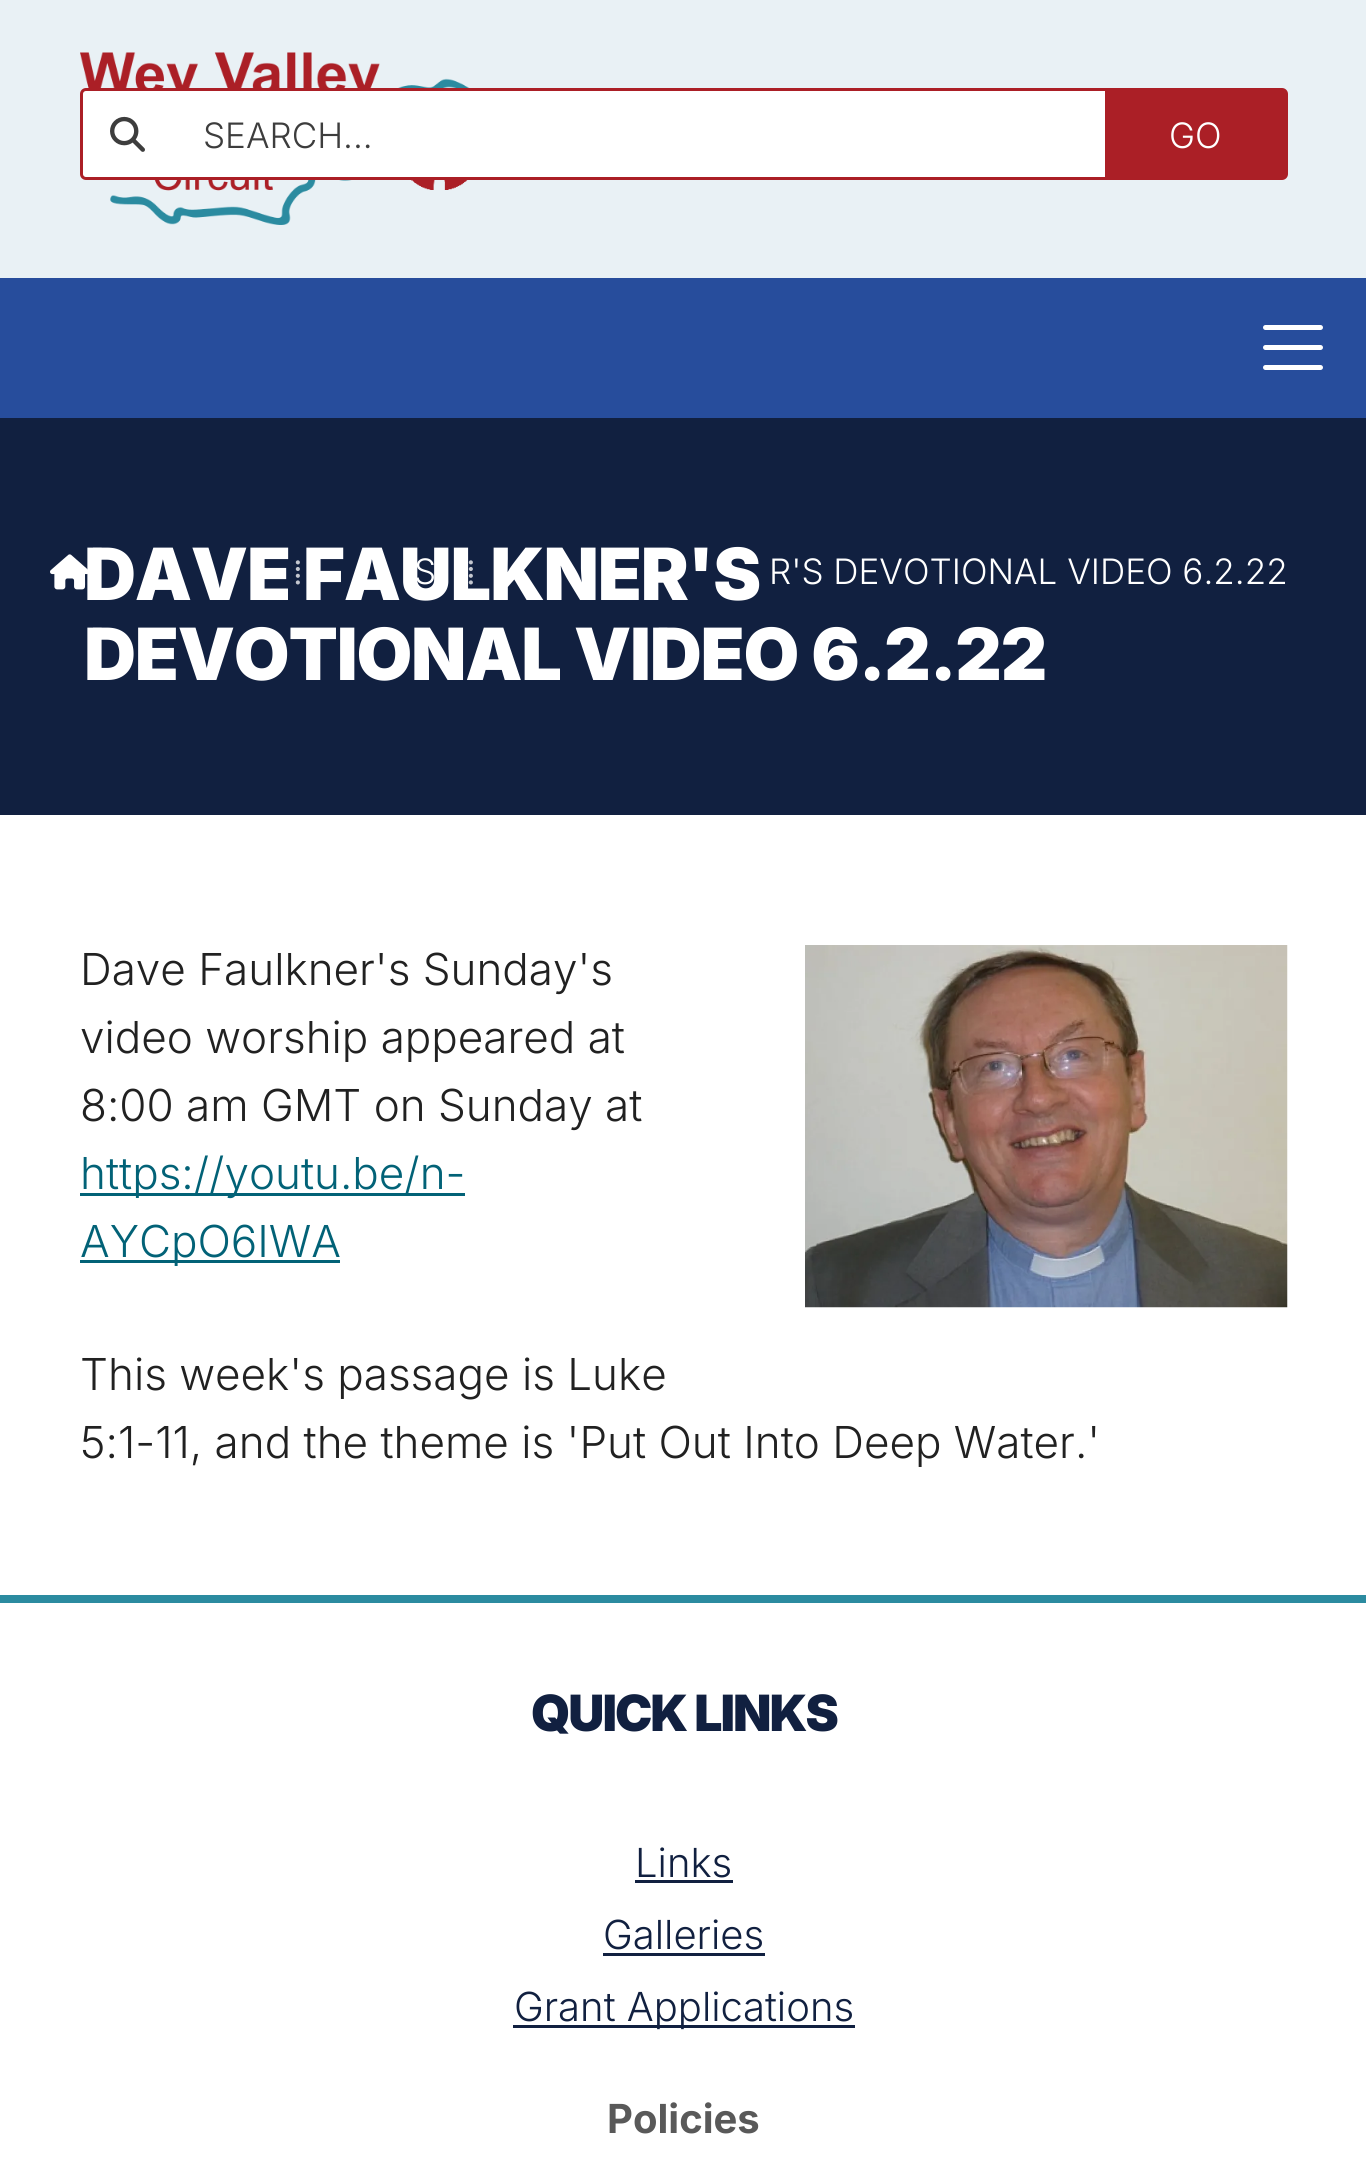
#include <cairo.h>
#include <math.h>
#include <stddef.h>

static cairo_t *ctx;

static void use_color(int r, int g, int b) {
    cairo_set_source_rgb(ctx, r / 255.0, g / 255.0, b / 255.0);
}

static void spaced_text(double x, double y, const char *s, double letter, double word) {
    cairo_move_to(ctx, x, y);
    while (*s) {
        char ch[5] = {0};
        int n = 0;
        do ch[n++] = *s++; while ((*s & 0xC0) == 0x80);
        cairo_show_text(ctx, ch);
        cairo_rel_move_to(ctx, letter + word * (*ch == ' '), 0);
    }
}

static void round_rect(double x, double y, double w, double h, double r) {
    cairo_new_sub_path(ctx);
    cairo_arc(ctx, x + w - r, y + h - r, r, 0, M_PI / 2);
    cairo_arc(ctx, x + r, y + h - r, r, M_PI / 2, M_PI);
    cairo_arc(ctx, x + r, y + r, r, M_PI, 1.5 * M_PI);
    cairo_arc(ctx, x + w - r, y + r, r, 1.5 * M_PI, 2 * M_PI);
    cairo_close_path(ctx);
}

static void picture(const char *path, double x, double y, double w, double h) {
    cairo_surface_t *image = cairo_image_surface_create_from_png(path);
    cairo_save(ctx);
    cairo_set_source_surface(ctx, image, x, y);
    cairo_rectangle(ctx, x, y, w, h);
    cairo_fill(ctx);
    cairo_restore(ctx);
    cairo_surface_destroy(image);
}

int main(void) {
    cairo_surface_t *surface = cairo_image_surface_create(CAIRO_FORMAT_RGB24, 1366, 2158);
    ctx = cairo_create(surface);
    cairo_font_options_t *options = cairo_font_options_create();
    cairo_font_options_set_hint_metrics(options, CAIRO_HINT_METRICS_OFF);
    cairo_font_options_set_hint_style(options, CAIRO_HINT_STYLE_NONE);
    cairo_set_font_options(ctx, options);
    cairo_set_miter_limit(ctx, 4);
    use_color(255, 255, 255);
    cairo_paint(ctx);
    use_color(233, 241, 245);
    cairo_rectangle(ctx, 0, 0, 1366, 278);
    cairo_fill(ctx);
    picture("img1.png", 80, 52, 390, 173);
    use_color(255, 255, 255);
    round_rect(81.5, 89.5, 1205, 89, 4.5);
    cairo_fill_preserve(ctx);
    use_color(171, 31, 38);
    cairo_set_line_width(ctx, 3);
    cairo_stroke(ctx);
    picture("img2.png", 110, 116, 35, 36);
    cairo_select_font_face(ctx, "Inter Light", CAIRO_FONT_SLANT_NORMAL, CAIRO_FONT_WEIGHT_NORMAL);
    cairo_set_font_size(ctx, 35);
    use_color(61, 61, 61);
    cairo_move_to(ctx, 203, 148);
    cairo_show_text(ctx, "SEARCH...");
    use_color(171, 31, 38);
    cairo_new_path(ctx);
    cairo_move_to(ctx, 1105, 90);
    cairo_line_to(ctx, 1282.5, 90);
    cairo_curve_to(ctx, 1284, 90, 1285, 91, 1285, 92.5);
    cairo_line_to(ctx, 1285, 175.5);
    cairo_curve_to(ctx, 1285, 177, 1284, 178, 1282.5, 178);
    cairo_line_to(ctx, 1105, 178);
    cairo_close_path(ctx);
    cairo_fill(ctx);
    use_color(255, 255, 255);
    cairo_move_to(ctx, 1169, 148);
    cairo_show_text(ctx, "GO");
    use_color(39, 77, 156);
    cairo_rectangle(ctx, 0, 278, 1366, 140);
    cairo_fill(ctx);
    use_color(255, 255, 255);
    round_rect(1263, 325, 60, 5, 2.5);
    cairo_fill(ctx);
    round_rect(1263, 345, 60, 5, 2.5);
    cairo_fill(ctx);
    round_rect(1263, 365, 60, 5, 2.5);
    cairo_fill(ctx);
    use_color(17, 32, 64);
    cairo_rectangle(ctx, 0, 418, 1366, 397);
    cairo_fill(ctx);
    cairo_select_font_face(ctx, "Inter Black", CAIRO_FONT_SLANT_NORMAL, CAIRO_FONT_WEIGHT_NORMAL);
    cairo_set_font_size(ctx, 72);
    use_color(255, 255, 255);
    spaced_text(84, 600, "DAVE FAULKNER'S", -1.2, 0);
    spaced_text(84, 680, "DEVOTIONAL VIDEO 6.2.22", -1.2, 0);
    picture("img3.png", 50, 554, 38, 36);
    cairo_select_font_face(ctx, "Liberation Serif", CAIRO_FONT_SLANT_NORMAL, CAIRO_FONT_WEIGHT_NORMAL);
    cairo_set_font_size(ctx, 35);
    use_color(196, 199, 207);
    cairo_move_to(ctx, 293, 584);
    cairo_show_text(ctx, "⁞");
    cairo_select_font_face(ctx, "Inter Light", CAIRO_FONT_SLANT_NORMAL, CAIRO_FONT_WEIGHT_NORMAL);
    use_color(255, 255, 255);
    cairo_move_to(ctx, 414, 584);
    cairo_show_text(ctx, "S");
    cairo_select_font_face(ctx, "Liberation Serif", CAIRO_FONT_SLANT_NORMAL, CAIRO_FONT_WEIGHT_NORMAL);
    use_color(196, 199, 207);
    cairo_move_to(ctx, 466, 584);
    cairo_show_text(ctx, "⁞");
    cairo_select_font_face(ctx, "Inter Light", CAIRO_FONT_SLANT_NORMAL, CAIRO_FONT_WEIGHT_NORMAL);
    use_color(255, 255, 255);
    cairo_move_to(ctx, 769, 584);
    cairo_show_text(ctx, "R'S DEVOTIONAL VIDEO 6.2.22");
    cairo_set_font_size(ctx, 44);
    use_color(33, 33, 33);
    cairo_move_to(ctx, 80, 985);
    cairo_show_text(ctx, "Dave Faulkner's Sunday's");
    cairo_move_to(ctx, 80, 1053);
    cairo_show_text(ctx, "video worship appeared at");
    cairo_move_to(ctx, 80, 1121);
    cairo_show_text(ctx, "8:00 am GMT on Sunday at");
    use_color(2, 98, 119);
    cairo_rectangle(ctx, 80, 1193, 385, 3);
    cairo_fill(ctx);
    cairo_move_to(ctx, 80, 1189);
    cairo_show_text(ctx, "https://youtu.be/n-");
    cairo_rectangle(ctx, 80, 1260, 260, 3);
    cairo_fill(ctx);
    cairo_move_to(ctx, 80, 1257);
    cairo_show_text(ctx, "AYCpO6IWA");
    picture("img4.png", 805, 945, 483, 363);
    use_color(33, 33, 33);
    cairo_move_to(ctx, 80, 1390);
    cairo_show_text(ctx, "This week's passage is Luke");
    cairo_move_to(ctx, 80, 1458);
    cairo_show_text(ctx, "5:1-11, and the theme is 'Put Out Into Deep Water.'");
    use_color(43, 139, 160);
    cairo_rectangle(ctx, 0, 1595, 1366, 8);
    cairo_fill(ctx);
    cairo_select_font_face(ctx, "Inter Black", CAIRO_FONT_SLANT_NORMAL, CAIRO_FONT_WEIGHT_NORMAL);
    cairo_set_font_size(ctx, 50);
    use_color(17, 32, 64);
    spaced_text(531, 1731, "QUICK LINKS", -2, 0);
    cairo_select_font_face(ctx, "Inter Light", CAIRO_FONT_SLANT_NORMAL, CAIRO_FONT_WEIGHT_NORMAL);
    cairo_set_font_size(ctx, 40);
    cairo_move_to(ctx, 635, 1877);
    cairo_show_text(ctx, "Links");
    cairo_rectangle(ctx, 635, 1880, 98, 3);
    cairo_fill(ctx);
    cairo_move_to(ctx, 603, 1949);
    cairo_show_text(ctx, "Galleries");
    cairo_rectangle(ctx, 603, 1953, 162, 3);
    cairo_fill(ctx);
    cairo_rectangle(ctx, 513, 2025, 342, 3);
    cairo_fill(ctx);
    cairo_move_to(ctx, 514, 2021);
    cairo_show_text(ctx, "Grant Applications");
    cairo_select_font_face(ctx, "Inter", CAIRO_FONT_SLANT_NORMAL, CAIRO_FONT_WEIGHT_BOLD);
    use_color(89, 89, 89);
    cairo_move_to(ctx, 607, 2133);
    cairo_show_text(ctx, "Policies");
    cairo_surface_write_to_png(surface, "result.png");
    cairo_font_options_destroy(options);
    cairo_destroy(ctx);
    cairo_surface_destroy(surface);
    return 0;
}
